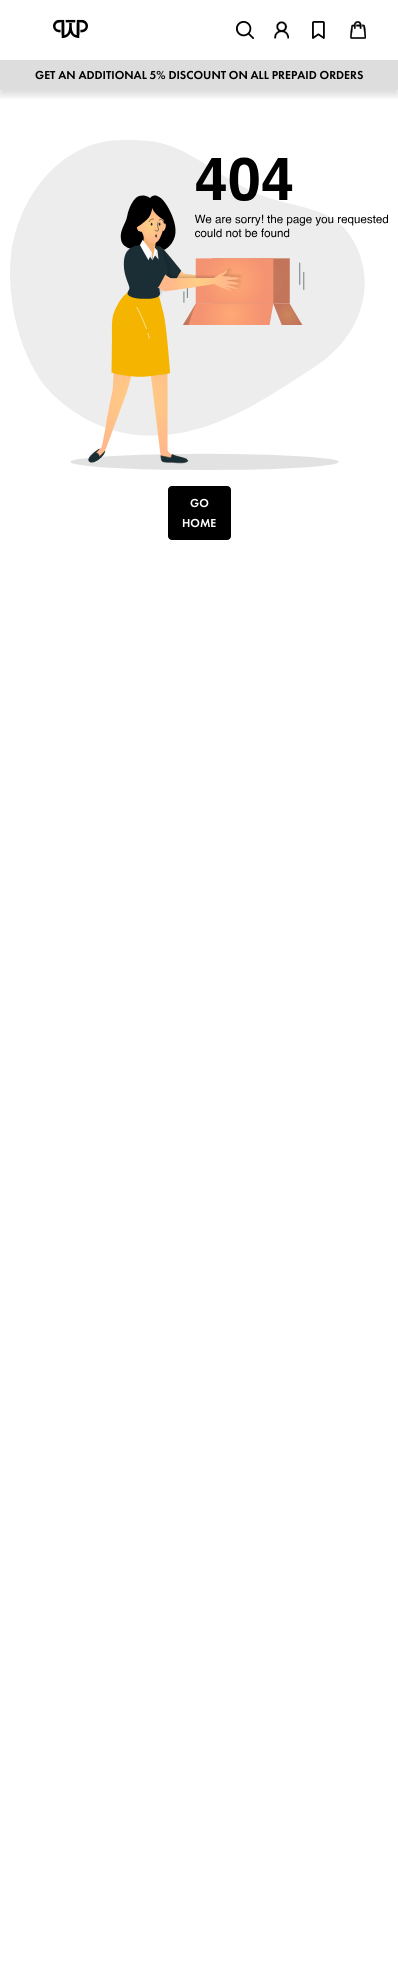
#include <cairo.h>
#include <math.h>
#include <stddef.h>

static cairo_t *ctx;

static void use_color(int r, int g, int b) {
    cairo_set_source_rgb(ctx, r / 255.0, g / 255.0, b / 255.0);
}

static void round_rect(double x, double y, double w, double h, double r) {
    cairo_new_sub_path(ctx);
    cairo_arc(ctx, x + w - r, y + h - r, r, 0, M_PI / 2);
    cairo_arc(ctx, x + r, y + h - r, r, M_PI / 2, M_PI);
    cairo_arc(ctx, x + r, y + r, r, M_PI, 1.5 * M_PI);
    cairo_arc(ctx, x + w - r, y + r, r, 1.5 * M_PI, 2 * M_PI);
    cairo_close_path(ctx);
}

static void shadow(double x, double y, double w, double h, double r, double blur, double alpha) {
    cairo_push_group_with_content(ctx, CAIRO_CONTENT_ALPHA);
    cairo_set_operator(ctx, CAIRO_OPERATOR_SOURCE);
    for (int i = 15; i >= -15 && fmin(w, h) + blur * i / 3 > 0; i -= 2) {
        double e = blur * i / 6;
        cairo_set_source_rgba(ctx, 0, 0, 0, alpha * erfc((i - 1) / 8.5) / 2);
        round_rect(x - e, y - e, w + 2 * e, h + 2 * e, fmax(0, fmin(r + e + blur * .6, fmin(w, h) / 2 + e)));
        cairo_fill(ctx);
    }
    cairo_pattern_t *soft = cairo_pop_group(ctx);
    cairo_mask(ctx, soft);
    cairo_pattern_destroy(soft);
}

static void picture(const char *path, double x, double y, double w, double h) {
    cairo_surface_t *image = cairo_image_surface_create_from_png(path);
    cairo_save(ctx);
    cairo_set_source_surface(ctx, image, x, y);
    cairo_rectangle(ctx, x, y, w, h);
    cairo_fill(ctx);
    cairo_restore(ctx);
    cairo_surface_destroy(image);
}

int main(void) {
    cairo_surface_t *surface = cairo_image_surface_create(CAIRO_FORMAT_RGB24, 398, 1981);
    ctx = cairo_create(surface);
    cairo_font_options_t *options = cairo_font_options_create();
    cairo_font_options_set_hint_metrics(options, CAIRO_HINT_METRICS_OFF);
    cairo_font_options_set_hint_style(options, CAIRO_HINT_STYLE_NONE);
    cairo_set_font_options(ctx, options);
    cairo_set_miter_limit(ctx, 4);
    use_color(255, 255, 255);
    cairo_paint(ctx);
    cairo_save(ctx);
    cairo_rectangle(ctx, 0, 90, 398, 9);
    cairo_clip(ctx);
    use_color(0, 0, 0);
    shadow(0, 5, 398, 90, 0, 4, 0.15);
    cairo_restore(ctx);
    picture("img1.png", 53, 19, 35, 20);
    picture("img2.png", 236, 21, 18, 18);
    picture("img3.png", 274, 21, 15, 18);
    picture("img4.png", 312, 21, 13, 18);
    picture("img5.png", 350, 21, 16, 18);
    use_color(221, 221, 221);
    cairo_rectangle(ctx, 0, 60, 398, 30);
    cairo_fill(ctx);
    cairo_select_font_face(ctx, "Futura PT Medium", CAIRO_FONT_SLANT_NORMAL, CAIRO_FONT_WEIGHT_NORMAL);
    cairo_set_font_size(ctx, 12);
    use_color(0, 0, 0);
    cairo_move_to(ctx, 35, 79);
    cairo_show_text(ctx, "GET AN ADDITIONAL 5% DISCOUNT ON ALL PREPAID ORDERS");
    picture("img6.png", 10, 140, 378, 330);
    round_rect(168.5, 486.5, 62, 53, 3.5);
    cairo_fill_preserve(ctx);
    cairo_set_line_width(ctx, 1);
    cairo_stroke(ctx);
    use_color(255, 255, 255);
    cairo_move_to(ctx, 190, 507);
    cairo_show_text(ctx, "GO");
    cairo_move_to(ctx, 182, 527);
    cairo_show_text(ctx, "HOME");
    cairo_surface_write_to_png(surface, "result.png");
    cairo_font_options_destroy(options);
    cairo_destroy(ctx);
    cairo_surface_destroy(surface);
    return 0;
}
